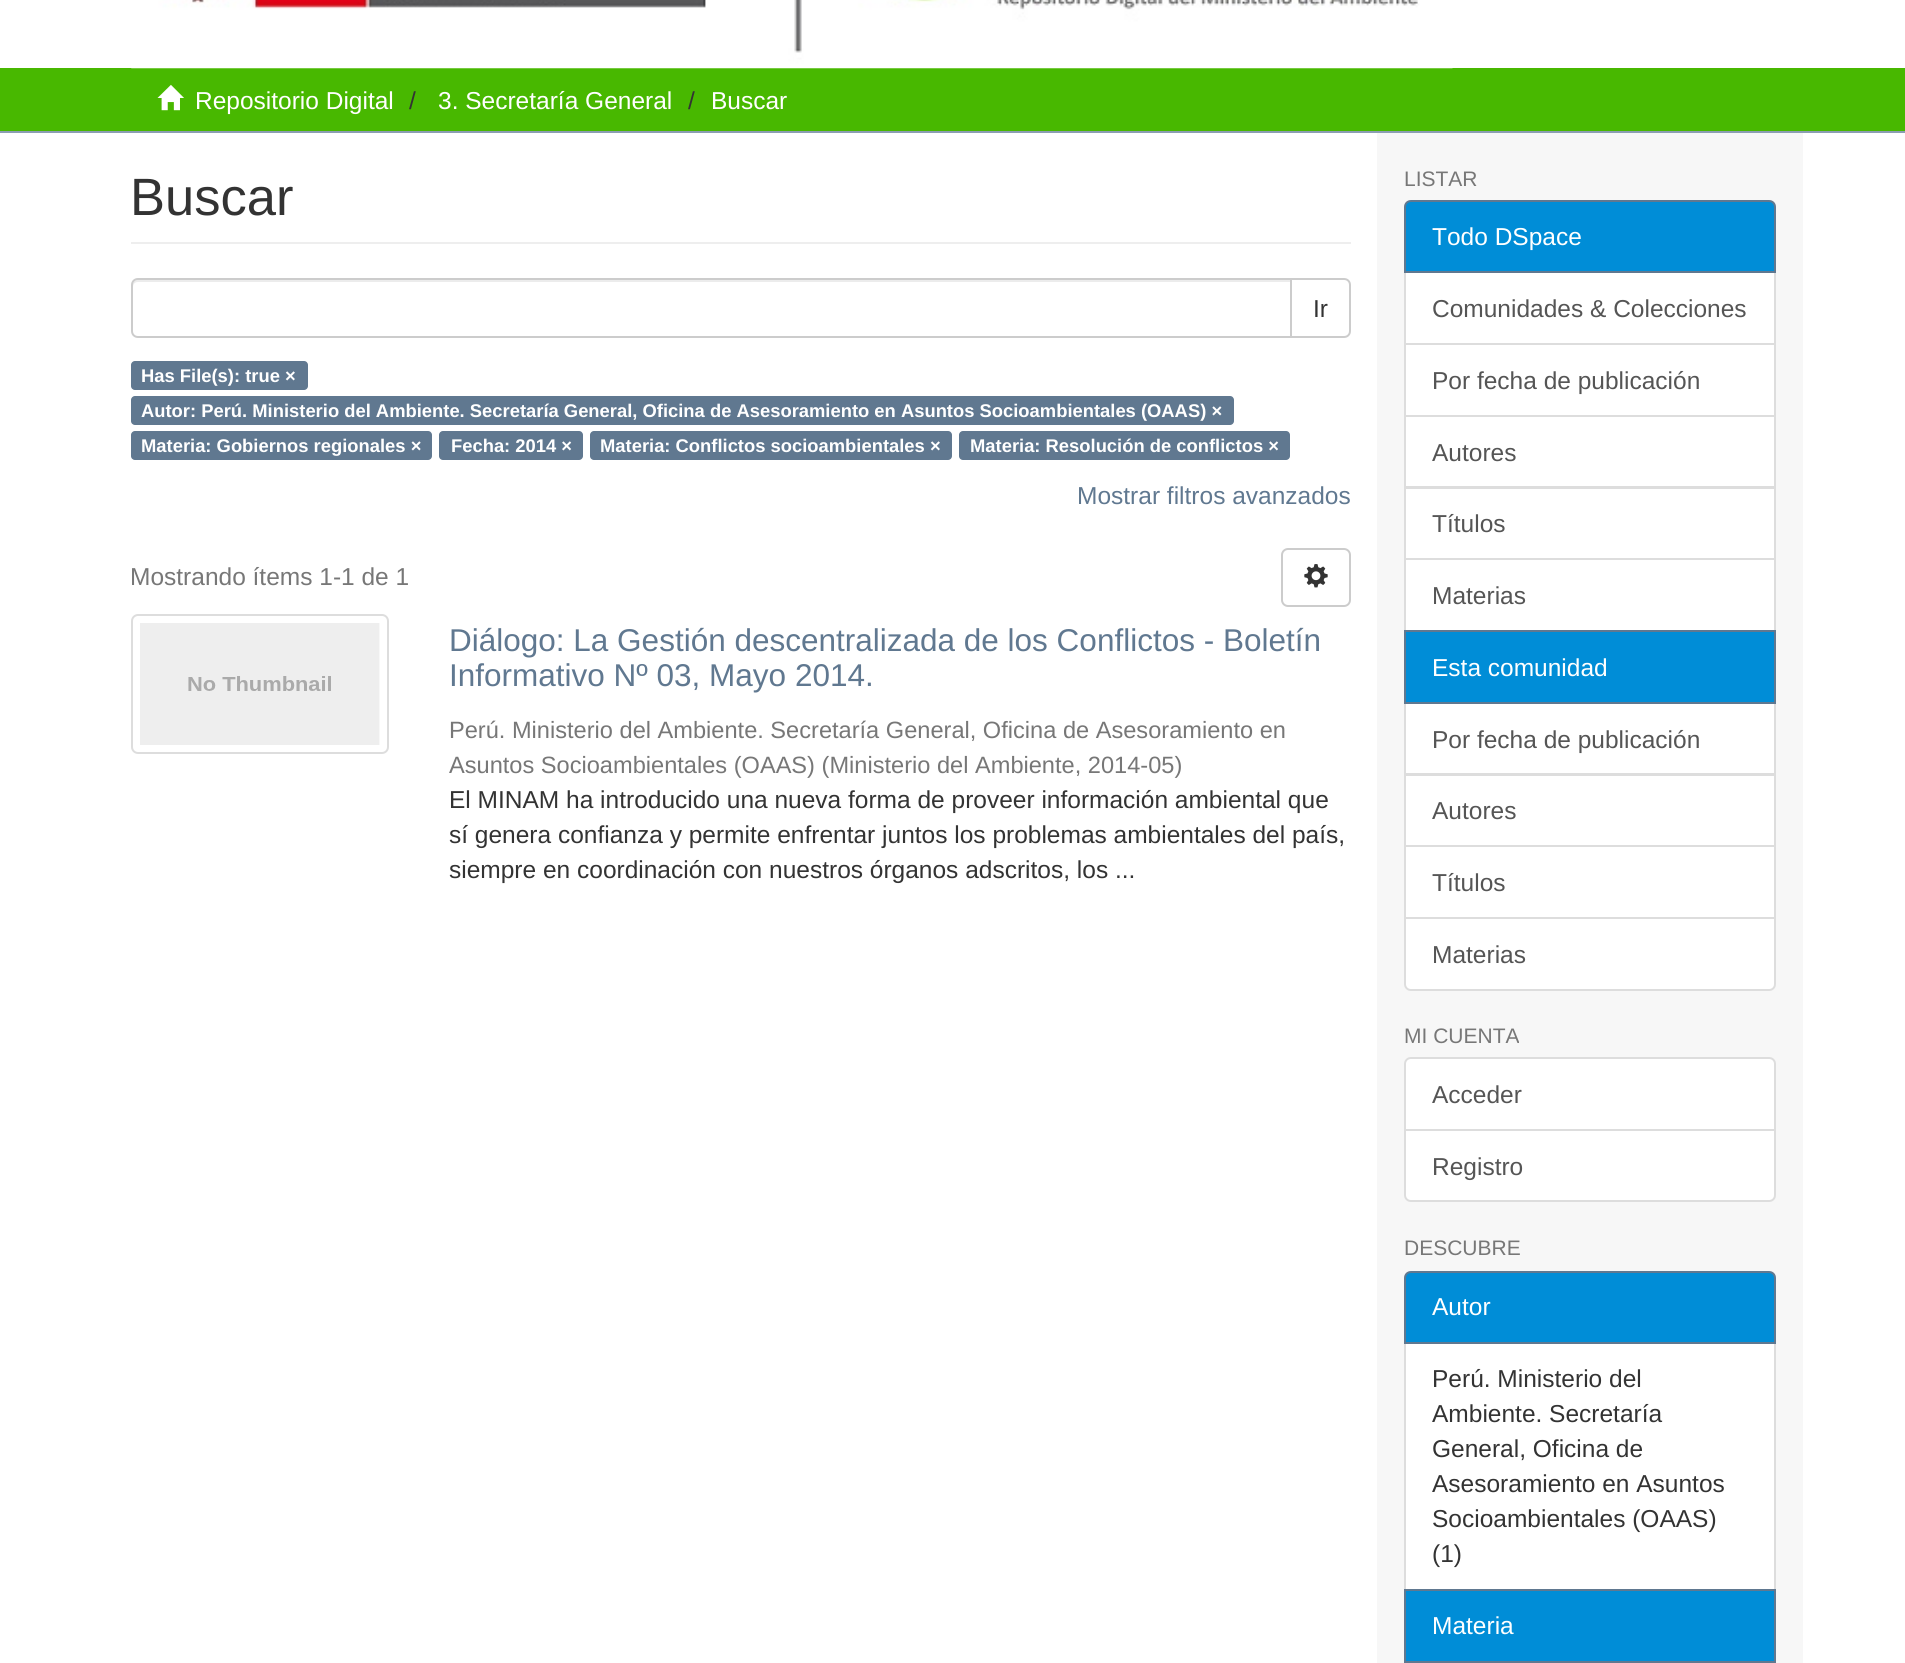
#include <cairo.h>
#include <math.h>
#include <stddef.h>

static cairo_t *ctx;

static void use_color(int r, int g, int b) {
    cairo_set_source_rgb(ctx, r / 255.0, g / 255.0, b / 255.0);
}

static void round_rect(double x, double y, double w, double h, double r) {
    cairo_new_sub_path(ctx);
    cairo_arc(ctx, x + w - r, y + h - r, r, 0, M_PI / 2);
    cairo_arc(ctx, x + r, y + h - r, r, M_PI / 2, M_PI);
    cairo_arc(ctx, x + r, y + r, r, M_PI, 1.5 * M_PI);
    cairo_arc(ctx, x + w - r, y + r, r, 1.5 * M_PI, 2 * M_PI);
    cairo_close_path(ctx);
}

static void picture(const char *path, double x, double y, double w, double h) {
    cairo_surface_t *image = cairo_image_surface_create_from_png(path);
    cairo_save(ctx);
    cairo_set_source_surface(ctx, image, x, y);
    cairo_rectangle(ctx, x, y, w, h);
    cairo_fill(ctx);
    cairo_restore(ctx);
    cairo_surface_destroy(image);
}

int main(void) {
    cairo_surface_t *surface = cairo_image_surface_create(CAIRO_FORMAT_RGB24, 1905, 1663);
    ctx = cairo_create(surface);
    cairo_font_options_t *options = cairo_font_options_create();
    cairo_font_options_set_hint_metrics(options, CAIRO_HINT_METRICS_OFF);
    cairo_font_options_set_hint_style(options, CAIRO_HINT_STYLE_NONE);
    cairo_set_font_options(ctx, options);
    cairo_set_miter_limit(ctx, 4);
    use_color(255, 255, 255);
    cairo_paint(ctx);
    use_color(72, 184, 0);
    cairo_rectangle(ctx, 0, 68, 1905, 63);
    cairo_fill(ctx);
    picture("img1.png", 131, 0, 1322, 69);
    use_color(139, 158, 178);
    cairo_rectangle(ctx, 0, 131, 1905, 2);
    cairo_fill(ctx);
    picture("img2.png", 157, 84, 27, 27);
    cairo_select_font_face(ctx, "Liberation Sans", CAIRO_FONT_SLANT_NORMAL, CAIRO_FONT_WEIGHT_NORMAL);
    cairo_set_font_size(ctx, 24.5);
    use_color(255, 255, 255);
    cairo_move_to(ctx, 195, 109);
    cairo_show_text(ctx, "Repositorio Digital");
    use_color(51, 51, 51);
    cairo_move_to(ctx, 409, 109);
    cairo_show_text(ctx, "/");
    use_color(255, 255, 255);
    cairo_move_to(ctx, 438, 109);
    cairo_show_text(ctx, "3. Secretaría General");
    use_color(51, 51, 51);
    cairo_move_to(ctx, 688, 109);
    cairo_show_text(ctx, "/");
    use_color(255, 255, 255);
    cairo_move_to(ctx, 711, 109);
    cairo_show_text(ctx, "Buscar");
    use_color(247, 247, 247);
    cairo_rectangle(ctx, 1377, 133, 426, 1530);
    cairo_fill(ctx);
    use_color(238, 238, 238);
    cairo_rectangle(ctx, 131, 242, 1220, 2);
    cairo_fill(ctx);
    cairo_set_font_size(ctx, 52.5);
    use_color(51, 51, 51);
    cairo_move_to(ctx, 130, 215);
    cairo_show_text(ctx, "Buscar");
    cairo_new_path(ctx);
    cairo_move_to(ctx, 1291, 279);
    cairo_line_to(ctx, 1344, 279);
    cairo_curve_to(ctx, 1347.5, 279, 1350, 281.5, 1350, 285);
    cairo_line_to(ctx, 1350, 331);
    cairo_curve_to(ctx, 1350, 334.5, 1347.5, 337, 1344, 337);
    cairo_line_to(ctx, 1291, 337);
    cairo_close_path(ctx);
    use_color(204, 204, 204);
    cairo_stroke(ctx);
    use_color(255, 255, 255);
    cairo_new_path(ctx);
    cairo_move_to(ctx, 138, 278);
    cairo_line_to(ctx, 1292, 278);
    cairo_line_to(ctx, 1292, 338);
    cairo_line_to(ctx, 138, 338);
    cairo_curve_to(ctx, 134, 338, 131, 335, 131, 331);
    cairo_line_to(ctx, 131, 285);
    cairo_curve_to(ctx, 131, 281, 134, 278, 138, 278);
    cairo_close_path(ctx);
    cairo_fill(ctx);
    use_color(236, 236, 236);
    cairo_new_path(ctx);
    cairo_move_to(ctx, 138, 282);
    cairo_line_to(ctx, 1290, 282);
    cairo_line_to(ctx, 1290, 280);
    cairo_line_to(ctx, 138, 280);
    cairo_curve_to(ctx, 135, 280, 133, 282, 133, 285);
    cairo_line_to(ctx, 133, 287);
    cairo_curve_to(ctx, 133, 284, 135, 282, 138, 282);
    cairo_close_path(ctx);
    cairo_fill(ctx);
    cairo_new_path(ctx);
    cairo_move_to(ctx, 138, 279);
    cairo_line_to(ctx, 1291, 279);
    cairo_line_to(ctx, 1291, 337);
    cairo_line_to(ctx, 138, 337);
    cairo_curve_to(ctx, 134.5, 337, 132, 334.5, 132, 331);
    cairo_line_to(ctx, 132, 285);
    cairo_curve_to(ctx, 132, 281.5, 134.5, 279, 138, 279);
    cairo_close_path(ctx);
    use_color(204, 204, 204);
    cairo_stroke(ctx);
    cairo_set_font_size(ctx, 24.5);
    use_color(51, 51, 51);
    cairo_move_to(ctx, 1313, 317);
    cairo_show_text(ctx, "Ir");
    use_color(96, 120, 144);
    round_rect(131, 361, 177, 29, 4);
    cairo_fill(ctx);
    cairo_select_font_face(ctx, "Liberation Sans", CAIRO_FONT_SLANT_NORMAL, CAIRO_FONT_WEIGHT_BOLD);
    cairo_set_font_size(ctx, 18.38);
    use_color(255, 255, 255);
    cairo_move_to(ctx, 141, 382);
    cairo_show_text(ctx, "Has File(s): true ×");
    use_color(96, 120, 144);
    round_rect(131, 396, 1103, 29, 4);
    cairo_fill(ctx);
    use_color(255, 255, 255);
    cairo_move_to(ctx, 141, 417);
    cairo_show_text(ctx, "Autor: Perú. Ministerio del Ambiente. Secretaría General, Oficina de Asesoramiento en Asuntos Socioambientales (OAAS) ×");
    use_color(96, 120, 144);
    round_rect(131, 431, 301, 29, 4);
    cairo_fill(ctx);
    use_color(255, 255, 255);
    cairo_move_to(ctx, 141, 452);
    cairo_show_text(ctx, "Materia: Gobiernos regionales ×");
    use_color(96, 120, 144);
    round_rect(439, 431, 144, 29, 4);
    cairo_fill(ctx);
    use_color(255, 255, 255);
    cairo_move_to(ctx, 451, 452);
    cairo_show_text(ctx, "Fecha: 2014 ×");
    use_color(96, 120, 144);
    round_rect(590, 431, 362, 29, 4);
    cairo_fill(ctx);
    use_color(255, 255, 255);
    cairo_move_to(ctx, 600, 452);
    cairo_show_text(ctx, "Materia: Conflictos socioambientales ×");
    use_color(96, 120, 144);
    round_rect(959, 431, 331, 29, 4);
    cairo_fill(ctx);
    use_color(255, 255, 255);
    cairo_move_to(ctx, 970, 452);
    cairo_show_text(ctx, "Materia: Resolución de conflictos ×");
    cairo_select_font_face(ctx, "Liberation Sans", CAIRO_FONT_SLANT_NORMAL, CAIRO_FONT_WEIGHT_NORMAL);
    cairo_set_font_size(ctx, 24.5);
    use_color(96, 120, 144);
    cairo_move_to(ctx, 1077, 504);
    cairo_show_text(ctx, "Mostrar filtros avanzados");
    use_color(119, 119, 119);
    cairo_move_to(ctx, 130, 585);
    cairo_show_text(ctx, "Mostrando ítems 1-1 de 1");
    round_rect(1282, 549, 68, 57, 6);
    use_color(204, 204, 204);
    cairo_stroke(ctx);
    picture("img3.png", 1304, 564, 24, 24);
    round_rect(132, 615, 256, 138, 6);
    use_color(221, 221, 221);
    cairo_stroke(ctx);
    picture("img4.png", 140, 623, 240, 122);
    cairo_set_font_size(ctx, 31.5);
    use_color(96, 120, 144);
    cairo_move_to(ctx, 449, 651);
    cairo_show_text(ctx, "Diálogo: La Gestión descentralizada de los Conflictos - Boletín");
    cairo_move_to(ctx, 449, 686);
    cairo_show_text(ctx, "Informativo Nº 03, Mayo 2014.");
    cairo_set_font_size(ctx, 23.6);
    use_color(119, 119, 119);
    cairo_move_to(ctx, 449, 738);
    cairo_show_text(ctx, "Perú. Ministerio del Ambiente. Secretaría General, Oficina de Asesoramiento en");
    cairo_move_to(ctx, 449, 773);
    cairo_show_text(ctx, "Asuntos Socioambientales (OAAS) (Ministerio del Ambiente, 2014-05)");
    cairo_set_font_size(ctx, 24.5);
    use_color(51, 51, 51);
    cairo_move_to(ctx, 449, 808);
    cairo_show_text(ctx, "El MINAM ha introducido una nueva forma de proveer información ambiental que");
    cairo_move_to(ctx, 449, 843);
    cairo_show_text(ctx, "sí genera confianza y permite enfrentar juntos los problemas ambientales del país,");
    cairo_move_to(ctx, 449, 878);
    cairo_show_text(ctx, "siempre en coordinación con nuestros órganos adscritos, los ...");
    cairo_set_font_size(ctx, 21);
    use_color(119, 119, 119);
    cairo_move_to(ctx, 1404, 186);
    cairo_show_text(ctx, "LISTAR");
    use_color(255, 255, 255);
    cairo_rectangle(ctx, 1405, 272, 370, 72);
    cairo_fill_preserve(ctx);
    use_color(221, 221, 221);
    cairo_stroke(ctx);
    use_color(0, 141, 215);
    cairo_new_path(ctx);
    cairo_move_to(ctx, 1411, 201);
    cairo_line_to(ctx, 1769, 201);
    cairo_curve_to(ctx, 1772.5, 201, 1775, 203.5, 1775, 207);
    cairo_line_to(ctx, 1775, 272);
    cairo_line_to(ctx, 1405, 272);
    cairo_line_to(ctx, 1405, 207);
    cairo_curve_to(ctx, 1405, 203.5, 1407.5, 201, 1411, 201);
    cairo_close_path(ctx);
    cairo_fill_preserve(ctx);
    use_color(96, 120, 144);
    cairo_stroke(ctx);
    cairo_set_font_size(ctx, 24.5);
    use_color(255, 255, 255);
    cairo_move_to(ctx, 1432, 245);
    cairo_show_text(ctx, "Todo DSpace");
    use_color(85, 85, 85);
    cairo_move_to(ctx, 1432, 317);
    cairo_show_text(ctx, "Comunidades & Colecciones");
    use_color(255, 255, 255);
    cairo_rectangle(ctx, 1405, 344, 370, 72);
    cairo_fill_preserve(ctx);
    use_color(221, 221, 221);
    cairo_stroke(ctx);
    use_color(85, 85, 85);
    cairo_move_to(ctx, 1432, 389);
    cairo_show_text(ctx, "Por fecha de publicación");
    use_color(255, 255, 255);
    cairo_rectangle(ctx, 1405, 416, 370, 71);
    cairo_fill_preserve(ctx);
    use_color(221, 221, 221);
    cairo_stroke(ctx);
    use_color(85, 85, 85);
    cairo_move_to(ctx, 1432, 461);
    cairo_show_text(ctx, "Autores");
    use_color(255, 255, 255);
    cairo_rectangle(ctx, 1405, 488, 370, 71);
    cairo_fill_preserve(ctx);
    use_color(221, 221, 221);
    cairo_stroke(ctx);
    use_color(85, 85, 85);
    cairo_move_to(ctx, 1432, 532);
    cairo_show_text(ctx, "Títulos");
    use_color(255, 255, 255);
    cairo_rectangle(ctx, 1405, 559, 370, 72);
    cairo_fill_preserve(ctx);
    use_color(221, 221, 221);
    cairo_stroke(ctx);
    use_color(85, 85, 85);
    cairo_move_to(ctx, 1432, 604);
    cairo_show_text(ctx, "Materias");
    use_color(255, 255, 255);
    cairo_rectangle(ctx, 1405, 703, 370, 71);
    cairo_fill_preserve(ctx);
    use_color(221, 221, 221);
    cairo_stroke(ctx);
    use_color(0, 141, 215);
    cairo_rectangle(ctx, 1405, 631, 370, 72);
    cairo_fill_preserve(ctx);
    use_color(96, 120, 144);
    cairo_stroke(ctx);
    use_color(255, 255, 255);
    cairo_move_to(ctx, 1432, 676);
    cairo_show_text(ctx, "Esta comunidad");
    use_color(85, 85, 85);
    cairo_move_to(ctx, 1432, 748);
    cairo_show_text(ctx, "Por fecha de publicación");
    use_color(255, 255, 255);
    cairo_rectangle(ctx, 1405, 775, 370, 71);
    cairo_fill_preserve(ctx);
    use_color(221, 221, 221);
    cairo_stroke(ctx);
    use_color(85, 85, 85);
    cairo_move_to(ctx, 1432, 819);
    cairo_show_text(ctx, "Autores");
    use_color(255, 255, 255);
    cairo_rectangle(ctx, 1405, 846, 370, 72);
    cairo_fill_preserve(ctx);
    use_color(221, 221, 221);
    cairo_stroke(ctx);
    use_color(85, 85, 85);
    cairo_move_to(ctx, 1432, 891);
    cairo_show_text(ctx, "Títulos");
    use_color(255, 255, 255);
    cairo_new_path(ctx);
    cairo_move_to(ctx, 1405, 918);
    cairo_line_to(ctx, 1775, 918);
    cairo_line_to(ctx, 1775, 984);
    cairo_curve_to(ctx, 1775, 987.5, 1772.5, 990, 1769, 990);
    cairo_line_to(ctx, 1411, 990);
    cairo_curve_to(ctx, 1407.5, 990, 1405, 987.5, 1405, 984);
    cairo_close_path(ctx);
    cairo_fill_preserve(ctx);
    use_color(221, 221, 221);
    cairo_stroke(ctx);
    use_color(85, 85, 85);
    cairo_move_to(ctx, 1432, 963);
    cairo_show_text(ctx, "Materias");
    cairo_set_font_size(ctx, 21);
    use_color(119, 119, 119);
    cairo_move_to(ctx, 1404, 1043);
    cairo_show_text(ctx, "MI CUENTA");
    use_color(255, 255, 255);
    cairo_new_path(ctx);
    cairo_move_to(ctx, 1411, 1058);
    cairo_line_to(ctx, 1769, 1058);
    cairo_curve_to(ctx, 1772.5, 1058, 1775, 1060.5, 1775, 1064);
    cairo_line_to(ctx, 1775, 1130);
    cairo_line_to(ctx, 1405, 1130);
    cairo_line_to(ctx, 1405, 1064);
    cairo_curve_to(ctx, 1405, 1060.5, 1407.5, 1058, 1411, 1058);
    cairo_close_path(ctx);
    cairo_fill_preserve(ctx);
    use_color(221, 221, 221);
    cairo_stroke(ctx);
    cairo_set_font_size(ctx, 24.5);
    use_color(85, 85, 85);
    cairo_move_to(ctx, 1432, 1103);
    cairo_show_text(ctx, "Acceder");
    use_color(255, 255, 255);
    cairo_new_path(ctx);
    cairo_move_to(ctx, 1405, 1130);
    cairo_line_to(ctx, 1775, 1130);
    cairo_line_to(ctx, 1775, 1195);
    cairo_curve_to(ctx, 1775, 1198.5, 1772.5, 1201, 1769, 1201);
    cairo_line_to(ctx, 1411, 1201);
    cairo_curve_to(ctx, 1407.5, 1201, 1405, 1198.5, 1405, 1195);
    cairo_close_path(ctx);
    cairo_fill_preserve(ctx);
    use_color(221, 221, 221);
    cairo_stroke(ctx);
    use_color(85, 85, 85);
    cairo_move_to(ctx, 1432, 1175);
    cairo_show_text(ctx, "Registro");
    cairo_set_font_size(ctx, 21);
    use_color(119, 119, 119);
    cairo_move_to(ctx, 1404, 1255);
    cairo_show_text(ctx, "DESCUBRE");
    use_color(255, 255, 255);
    cairo_rectangle(ctx, 1405, 1343, 370, 247);
    cairo_fill_preserve(ctx);
    use_color(221, 221, 221);
    cairo_stroke(ctx);
    use_color(0, 141, 215);
    cairo_new_path(ctx);
    cairo_move_to(ctx, 1411, 1272);
    cairo_line_to(ctx, 1769, 1272);
    cairo_curve_to(ctx, 1772.5, 1272, 1775, 1274.5, 1775, 1278);
    cairo_line_to(ctx, 1775, 1343);
    cairo_line_to(ctx, 1405, 1343);
    cairo_line_to(ctx, 1405, 1278);
    cairo_curve_to(ctx, 1405, 1274.5, 1407.5, 1272, 1411, 1272);
    cairo_close_path(ctx);
    cairo_fill_preserve(ctx);
    use_color(96, 120, 144);
    cairo_stroke(ctx);
    cairo_set_font_size(ctx, 24.5);
    use_color(255, 255, 255);
    cairo_move_to(ctx, 1432, 1315);
    cairo_show_text(ctx, "Autor");
    use_color(51, 51, 51);
    cairo_move_to(ctx, 1432, 1387);
    cairo_show_text(ctx, "Perú. Ministerio del");
    cairo_move_to(ctx, 1432, 1422);
    cairo_show_text(ctx, "Ambiente. Secretaría");
    cairo_move_to(ctx, 1432, 1457);
    cairo_show_text(ctx, "General, Oficina de");
    cairo_move_to(ctx, 1432, 1492);
    cairo_show_text(ctx, "Asesoramiento en Asuntos");
    cairo_move_to(ctx, 1432, 1527);
    cairo_show_text(ctx, "Socioambientales (OAAS)");
    cairo_move_to(ctx, 1432, 1562);
    cairo_show_text(ctx, "(1)");
    use_color(0, 141, 215);
    cairo_rectangle(ctx, 1405, 1590, 370, 72);
    cairo_fill_preserve(ctx);
    use_color(96, 120, 144);
    cairo_stroke(ctx);
    use_color(255, 255, 255);
    cairo_move_to(ctx, 1432, 1634);
    cairo_show_text(ctx, "Materia");
    cairo_surface_write_to_png(surface, "result.png");
    cairo_font_options_destroy(options);
    cairo_destroy(ctx);
    cairo_surface_destroy(surface);
    return 0;
}
